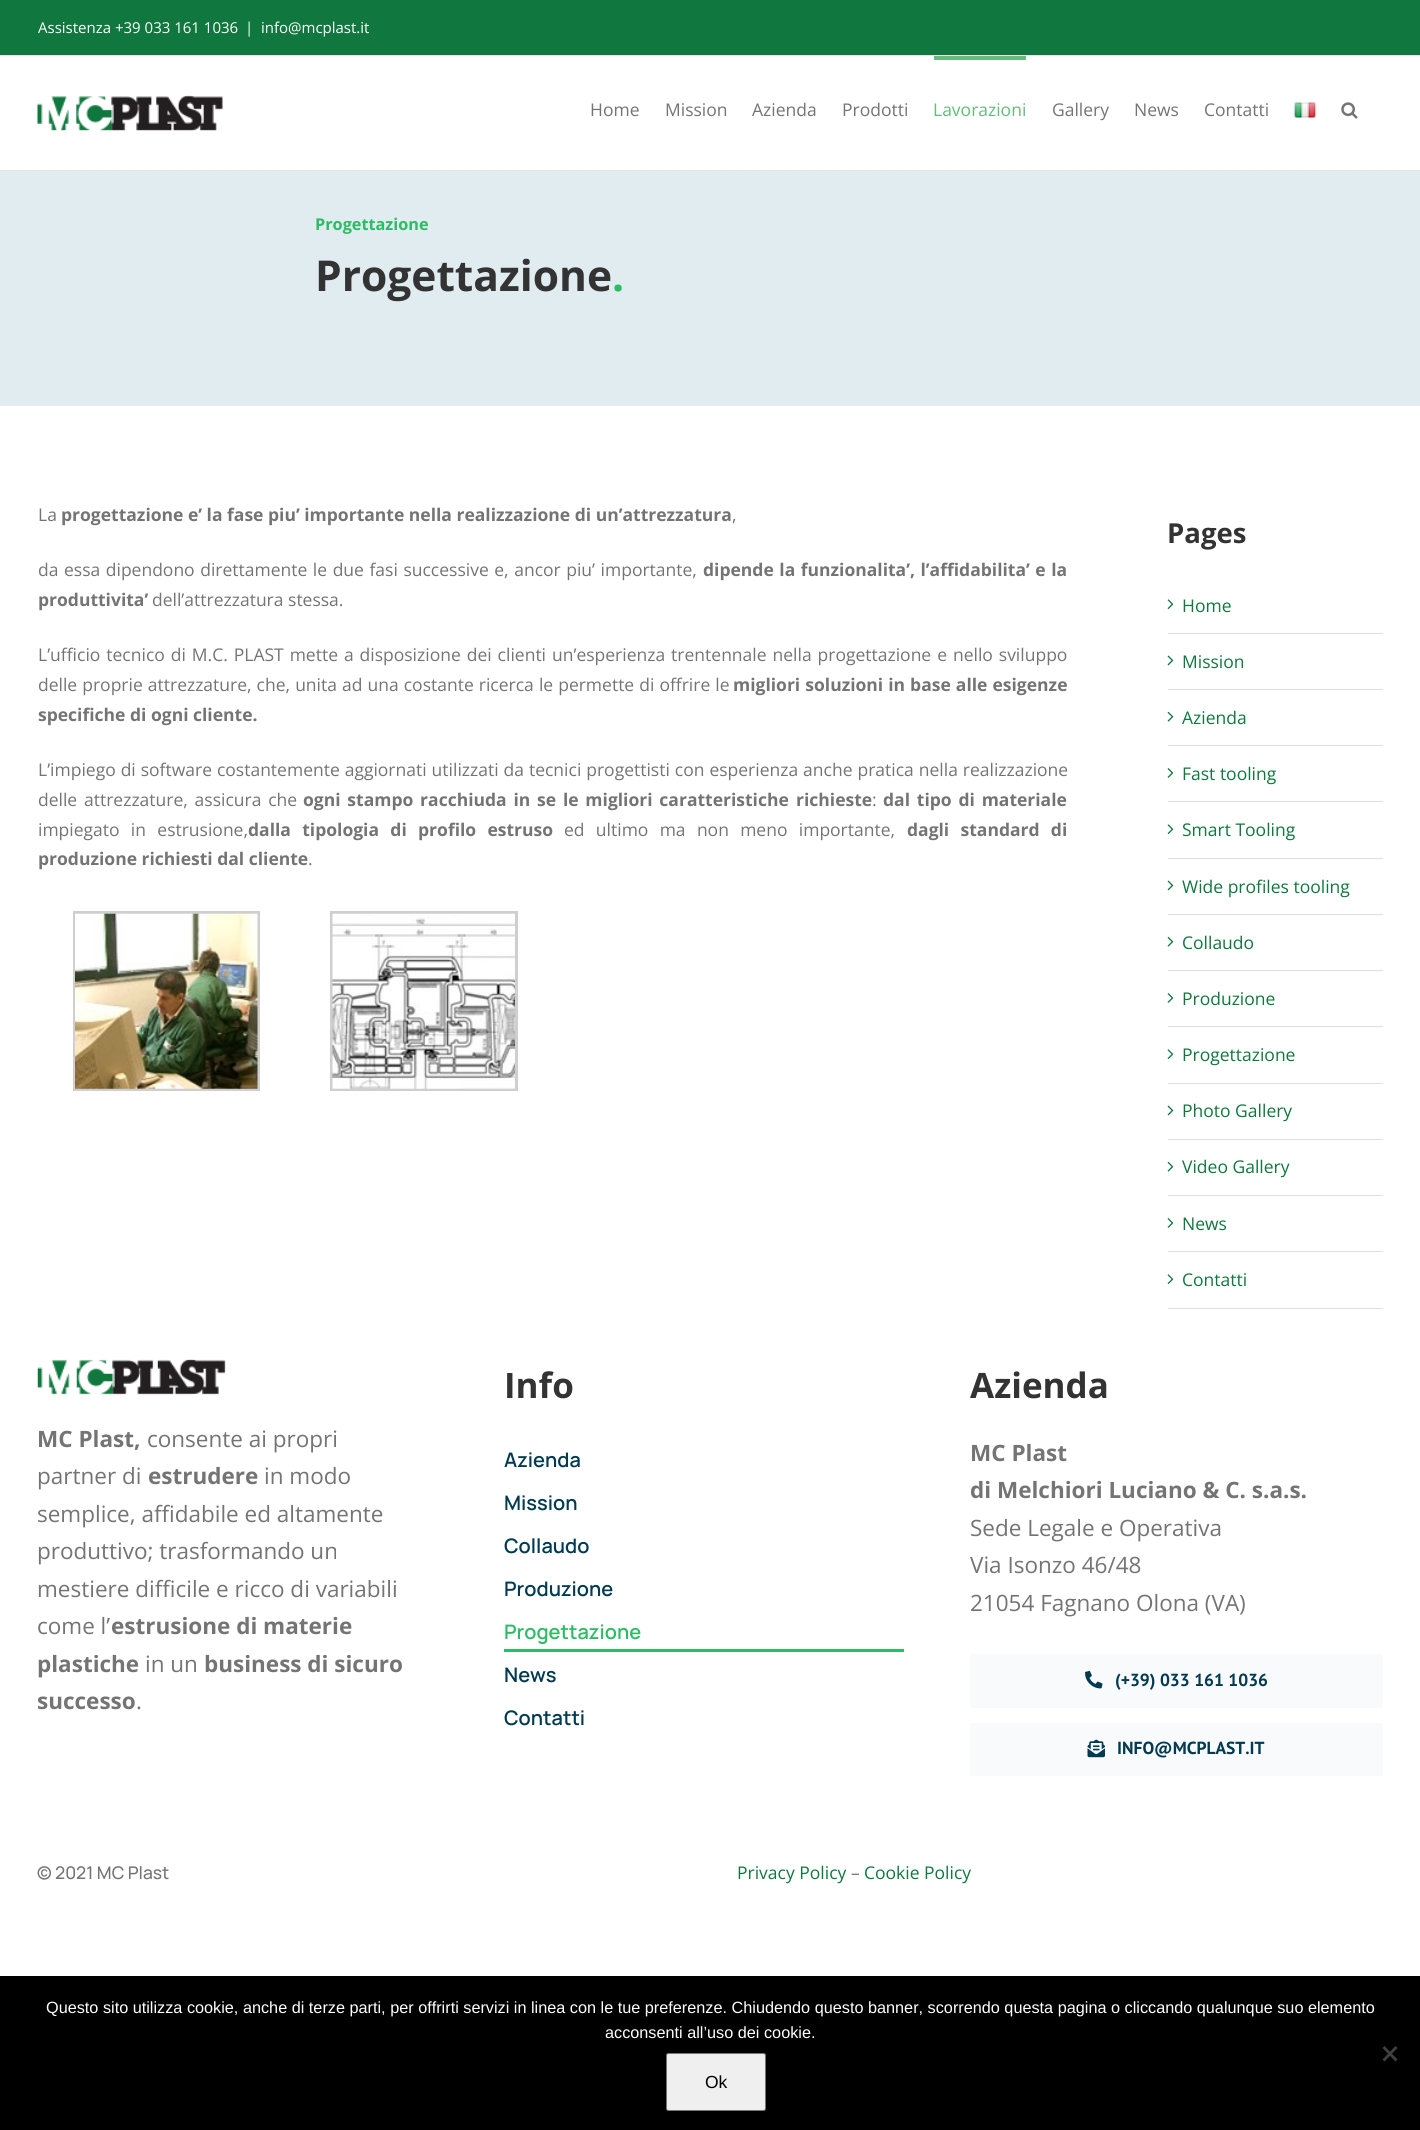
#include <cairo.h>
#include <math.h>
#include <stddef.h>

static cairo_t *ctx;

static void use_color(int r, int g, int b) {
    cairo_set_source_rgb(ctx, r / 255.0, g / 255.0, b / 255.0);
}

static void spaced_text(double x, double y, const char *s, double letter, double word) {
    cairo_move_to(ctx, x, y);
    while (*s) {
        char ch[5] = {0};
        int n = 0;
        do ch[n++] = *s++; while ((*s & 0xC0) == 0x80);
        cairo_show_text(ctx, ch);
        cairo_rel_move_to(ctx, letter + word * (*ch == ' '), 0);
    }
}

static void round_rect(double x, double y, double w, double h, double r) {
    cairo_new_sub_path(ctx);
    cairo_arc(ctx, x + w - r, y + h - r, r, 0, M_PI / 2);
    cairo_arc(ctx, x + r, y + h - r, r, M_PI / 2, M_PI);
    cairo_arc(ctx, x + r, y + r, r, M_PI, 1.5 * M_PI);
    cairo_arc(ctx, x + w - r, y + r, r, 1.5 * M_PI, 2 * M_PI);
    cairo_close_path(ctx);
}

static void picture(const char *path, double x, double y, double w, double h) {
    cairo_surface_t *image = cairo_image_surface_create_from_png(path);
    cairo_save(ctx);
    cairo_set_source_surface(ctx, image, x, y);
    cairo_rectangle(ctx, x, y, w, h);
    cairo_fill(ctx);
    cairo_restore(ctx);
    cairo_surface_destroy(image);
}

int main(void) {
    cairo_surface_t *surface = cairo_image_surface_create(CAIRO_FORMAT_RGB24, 1420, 2130);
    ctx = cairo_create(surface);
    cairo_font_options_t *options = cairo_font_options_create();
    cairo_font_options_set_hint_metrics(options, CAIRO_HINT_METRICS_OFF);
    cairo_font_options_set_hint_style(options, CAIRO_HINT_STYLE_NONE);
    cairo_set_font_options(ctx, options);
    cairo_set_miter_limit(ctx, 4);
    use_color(255, 255, 255);
    cairo_paint(ctx);
    use_color(16, 120, 62);
    cairo_rectangle(ctx, 0, 0, 1420, 55);
    cairo_fill(ctx);
    use_color(229, 229, 229);
    cairo_rectangle(ctx, 0, 55, 1420, 1);
    cairo_fill(ctx);
    cairo_select_font_face(ctx, "Open Sans", CAIRO_FONT_SLANT_NORMAL, CAIRO_FONT_WEIGHT_NORMAL);
    cairo_set_font_size(ctx, 15);
    use_color(255, 255, 255);
    cairo_move_to(ctx, 38, 33);
    cairo_show_text(ctx, "Assistenza +39 033 161 1036");
    cairo_move_to(ctx, 245, 33);
    cairo_show_text(ctx, "|");
    cairo_move_to(ctx, 261, 33);
    cairo_show_text(ctx, "info@mcplast.it");
    use_color(229, 229, 229);
    cairo_rectangle(ctx, 0, 170, 1420, 1);
    cairo_fill(ctx);
    picture("img1.png", 37, 95, 186, 36);
    cairo_set_font_size(ctx, 17.5);
    use_color(116, 116, 116);
    cairo_move_to(ctx, 590, 116);
    cairo_show_text(ctx, "Home");
    cairo_move_to(ctx, 665, 116);
    cairo_show_text(ctx, "Mission");
    cairo_move_to(ctx, 752, 116);
    cairo_show_text(ctx, "Azienda");
    cairo_move_to(ctx, 842, 116);
    cairo_show_text(ctx, "Prodotti");
    use_color(101, 188, 123);
    cairo_rectangle(ctx, 934, 56, 92, 4);
    cairo_fill(ctx);
    cairo_move_to(ctx, 933, 116);
    cairo_show_text(ctx, "Lavorazioni");
    use_color(116, 116, 116);
    cairo_move_to(ctx, 1052, 116);
    cairo_show_text(ctx, "Gallery");
    cairo_move_to(ctx, 1134, 116);
    cairo_show_text(ctx, "News");
    cairo_move_to(ctx, 1204, 116);
    cairo_show_text(ctx, "Contatti");
    picture("img2.png", 1293, 102, 24, 16);
    picture("img3.png", 1341, 102, 17, 17);
    use_color(224, 236, 240);
    cairo_rectangle(ctx, 0, 171, 1420, 235);
    cairo_fill(ctx);
    cairo_select_font_face(ctx, "Open Sans", CAIRO_FONT_SLANT_NORMAL, CAIRO_FONT_WEIGHT_BOLD);
    cairo_set_font_size(ctx, 16.25);
    use_color(44, 188, 99);
    cairo_move_to(ctx, 315, 230);
    cairo_show_text(ctx, "Progettazione");
    cairo_set_font_size(ctx, 42.5);
    use_color(51, 51, 51);
    cairo_move_to(ctx, 315, 291);
    cairo_show_text(ctx, "Progettazione");
    use_color(44, 188, 99);
    cairo_move_to(ctx, 612, 291);
    cairo_show_text(ctx, ".");
    cairo_select_font_face(ctx, "Open Sans", CAIRO_FONT_SLANT_NORMAL, CAIRO_FONT_WEIGHT_NORMAL);
    cairo_set_font_size(ctx, 17.5);
    use_color(116, 116, 116);
    cairo_move_to(ctx, 38, 521);
    cairo_show_text(ctx, "La");
    cairo_select_font_face(ctx, "Open Sans", CAIRO_FONT_SLANT_NORMAL, CAIRO_FONT_WEIGHT_BOLD);
    cairo_move_to(ctx, 61, 521);
    cairo_show_text(ctx, "progettazione e’ la fase piu’ importante nella realizzazione di un’attrezzatura");
    cairo_select_font_face(ctx, "Open Sans", CAIRO_FONT_SLANT_NORMAL, CAIRO_FONT_WEIGHT_NORMAL);
    cairo_move_to(ctx, 732, 521);
    cairo_show_text(ctx, ",");
    spaced_text(38, 576, "da essa dipendono direttamente le due fasi successive e, ancor piu’ importante,", 0, 1);
    cairo_select_font_face(ctx, "Open Sans", CAIRO_FONT_SLANT_NORMAL, CAIRO_FONT_WEIGHT_BOLD);
    spaced_text(703, 576, "dipende la funzionalita’, l’affidabilita’ e la", 0, 1);
    cairo_move_to(ctx, 38, 606);
    cairo_show_text(ctx, "produttivita’");
    cairo_select_font_face(ctx, "Open Sans", CAIRO_FONT_SLANT_NORMAL, CAIRO_FONT_WEIGHT_NORMAL);
    cairo_move_to(ctx, 152, 606);
    cairo_show_text(ctx, "dell’attrezzatura stessa.");
    spaced_text(38, 661, "L’ufficio tecnico di M.C. PLAST mette a disposizione dei clienti un’esperienza trentennale nella progettazione e nello sviluppo", 0, 1.4);
    spaced_text(38, 691, "delle proprie attrezzature, che, unita ad una costante ricerca le permette di offrire le", 0, 0.5);
    cairo_select_font_face(ctx, "Open Sans", CAIRO_FONT_SLANT_NORMAL, CAIRO_FONT_WEIGHT_BOLD);
    spaced_text(733, 691, "migliori soluzioni in base alle esigenze", 0, 0.5);
    cairo_move_to(ctx, 38, 721);
    cairo_show_text(ctx, "specifiche di ogni cliente.");
    cairo_select_font_face(ctx, "Open Sans", CAIRO_FONT_SLANT_NORMAL, CAIRO_FONT_WEIGHT_NORMAL);
    spaced_text(38, 776, "L’impiego di software costantemente aggiornati utilizzati da tecnici progettisti con esperienza anche pratica nella realizzazione", 0, 0.4);
    spaced_text(38, 806, "delle attrezzature, assicura che", 0, 2.25);
    cairo_select_font_face(ctx, "Open Sans", CAIRO_FONT_SLANT_NORMAL, CAIRO_FONT_WEIGHT_BOLD);
    spaced_text(303, 806, "ogni stampo racchiuda in se le migliori caratteristiche", 0, 2.25);
    cairo_move_to(ctx, 796, 806);
    cairo_show_text(ctx, "richieste");
    cairo_select_font_face(ctx, "Open Sans", CAIRO_FONT_SLANT_NORMAL, CAIRO_FONT_WEIGHT_NORMAL);
    cairo_move_to(ctx, 872, 806);
    cairo_show_text(ctx, ":");
    cairo_select_font_face(ctx, "Open Sans", CAIRO_FONT_SLANT_NORMAL, CAIRO_FONT_WEIGHT_BOLD);
    spaced_text(883, 806, "dal tipo di materiale", 0, 2.25);
    cairo_select_font_face(ctx, "Open Sans", CAIRO_FONT_SLANT_NORMAL, CAIRO_FONT_WEIGHT_NORMAL);
    spaced_text(38, 836, "impiegato in estrusione,", 0, 6.75);
    cairo_select_font_face(ctx, "Open Sans", CAIRO_FONT_SLANT_NORMAL, CAIRO_FONT_WEIGHT_BOLD);
    spaced_text(248, 836, "dalla tipologia di profilo estruso", 0, 6.75);
    cairo_select_font_face(ctx, "Open Sans", CAIRO_FONT_SLANT_NORMAL, CAIRO_FONT_WEIGHT_NORMAL);
    spaced_text(564, 836, "ed ultimo ma non meno importante,", 0, 6.75);
    cairo_select_font_face(ctx, "Open Sans", CAIRO_FONT_SLANT_NORMAL, CAIRO_FONT_WEIGHT_BOLD);
    spaced_text(907, 836, "dagli standard di", 0, 6.75);
    cairo_move_to(ctx, 38, 865);
    cairo_show_text(ctx, "produzione richiesti dal cliente");
    cairo_select_font_face(ctx, "Open Sans", CAIRO_FONT_SLANT_NORMAL, CAIRO_FONT_WEIGHT_NORMAL);
    cairo_move_to(ctx, 308, 865);
    cairo_show_text(ctx, ".");
    cairo_rectangle(ctx, 74.5, 912.5, 184, 177);
    use_color(207, 207, 207);
    cairo_set_line_width(ctx, 3);
    cairo_stroke(ctx);
    picture("img4.png", 75, 913, 183, 176);
    cairo_rectangle(ctx, 331.5, 912.5, 185, 177);
    cairo_stroke(ctx);
    picture("img5.png", 332, 913, 183, 176);
    cairo_select_font_face(ctx, "Open Sans", CAIRO_FONT_SLANT_NORMAL, CAIRO_FONT_WEIGHT_BOLD);
    cairo_set_font_size(ctx, 27.5);
    use_color(51, 51, 51);
    cairo_move_to(ctx, 1167, 543);
    cairo_show_text(ctx, "Pages");
    use_color(224, 222, 222);
    cairo_rectangle(ctx, 1168, 633, 215, 1);
    cairo_fill(ctx);
    picture("img6.png", 1167, 599, 7, 10);
    cairo_select_font_face(ctx, "Open Sans", CAIRO_FONT_SLANT_NORMAL, CAIRO_FONT_WEIGHT_NORMAL);
    cairo_set_font_size(ctx, 17.5);
    use_color(16, 120, 62);
    cairo_move_to(ctx, 1182, 612);
    cairo_show_text(ctx, "Home");
    use_color(224, 222, 222);
    cairo_rectangle(ctx, 1168, 689, 215, 1);
    cairo_fill(ctx);
    picture("img7.png", 1167, 655, 7, 11);
    use_color(16, 120, 62);
    cairo_move_to(ctx, 1182, 668);
    cairo_show_text(ctx, "Mission");
    use_color(224, 222, 222);
    cairo_rectangle(ctx, 1168, 745, 215, 1);
    cairo_fill(ctx);
    picture("img8.png", 1167, 711, 7, 11);
    use_color(16, 120, 62);
    cairo_move_to(ctx, 1182, 724);
    cairo_show_text(ctx, "Azienda");
    use_color(224, 222, 222);
    cairo_rectangle(ctx, 1168, 801, 215, 1);
    cairo_fill(ctx);
    picture("img9.png", 1167, 768, 7, 10);
    use_color(16, 120, 62);
    cairo_move_to(ctx, 1182, 780);
    cairo_show_text(ctx, "Fast tooling");
    use_color(224, 222, 222);
    cairo_rectangle(ctx, 1168, 858, 215, 1);
    cairo_fill(ctx);
    picture("img6.png", 1167, 824, 7, 10);
    use_color(16, 120, 62);
    cairo_move_to(ctx, 1182, 836);
    cairo_show_text(ctx, "Smart Tooling");
    use_color(224, 222, 222);
    cairo_rectangle(ctx, 1168, 914, 215, 1);
    cairo_fill(ctx);
    picture("img7.png", 1167, 880, 7, 11);
    use_color(16, 120, 62);
    cairo_move_to(ctx, 1182, 893);
    cairo_show_text(ctx, "Wide profiles tooling");
    use_color(224, 222, 222);
    cairo_rectangle(ctx, 1168, 970, 215, 1);
    cairo_fill(ctx);
    picture("img8.png", 1167, 936, 7, 11);
    use_color(16, 120, 62);
    cairo_move_to(ctx, 1182, 949);
    cairo_show_text(ctx, "Collaudo");
    use_color(224, 222, 222);
    cairo_rectangle(ctx, 1168, 1026, 215, 1);
    cairo_fill(ctx);
    picture("img9.png", 1167, 993, 7, 10);
    use_color(16, 120, 62);
    cairo_move_to(ctx, 1182, 1005);
    cairo_show_text(ctx, "Produzione");
    use_color(224, 222, 222);
    cairo_rectangle(ctx, 1168, 1083, 215, 1);
    cairo_fill(ctx);
    picture("img6.png", 1167, 1049, 7, 10);
    use_color(16, 120, 62);
    cairo_move_to(ctx, 1182, 1061);
    cairo_show_text(ctx, "Progettazione");
    use_color(224, 222, 222);
    cairo_rectangle(ctx, 1168, 1139, 215, 1);
    cairo_fill(ctx);
    picture("img7.png", 1167, 1105, 7, 11);
    use_color(16, 120, 62);
    cairo_move_to(ctx, 1182, 1117);
    cairo_show_text(ctx, "Photo Gallery");
    use_color(224, 222, 222);
    cairo_rectangle(ctx, 1168, 1195, 215, 1);
    cairo_fill(ctx);
    picture("img8.png", 1167, 1161, 7, 11);
    use_color(16, 120, 62);
    cairo_move_to(ctx, 1182, 1173);
    cairo_show_text(ctx, "Video Gallery");
    use_color(224, 222, 222);
    cairo_rectangle(ctx, 1168, 1251, 215, 1);
    cairo_fill(ctx);
    picture("img9.png", 1167, 1218, 7, 10);
    use_color(16, 120, 62);
    cairo_move_to(ctx, 1182, 1230);
    cairo_show_text(ctx, "News");
    use_color(224, 222, 222);
    cairo_rectangle(ctx, 1168, 1308, 215, 1);
    cairo_fill(ctx);
    picture("img6.png", 1167, 1274, 7, 10);
    use_color(16, 120, 62);
    cairo_move_to(ctx, 1182, 1286);
    cairo_show_text(ctx, "Contatti");
    picture("img10.png", 37, 1359, 189, 36);
    cairo_select_font_face(ctx, "Open Sans", CAIRO_FONT_SLANT_NORMAL, CAIRO_FONT_WEIGHT_BOLD);
    cairo_set_font_size(ctx, 22.5);
    use_color(116, 116, 116);
    cairo_move_to(ctx, 37, 1447);
    cairo_show_text(ctx, "MC Plast,");
    cairo_select_font_face(ctx, "Open Sans", CAIRO_FONT_SLANT_NORMAL, CAIRO_FONT_WEIGHT_NORMAL);
    cairo_move_to(ctx, 147, 1447);
    cairo_show_text(ctx, "consente ai propri");
    cairo_move_to(ctx, 37, 1484);
    cairo_show_text(ctx, "partner di");
    cairo_select_font_face(ctx, "Open Sans", CAIRO_FONT_SLANT_NORMAL, CAIRO_FONT_WEIGHT_BOLD);
    cairo_move_to(ctx, 148, 1484);
    cairo_show_text(ctx, "estrudere");
    cairo_select_font_face(ctx, "Open Sans", CAIRO_FONT_SLANT_NORMAL, CAIRO_FONT_WEIGHT_NORMAL);
    cairo_move_to(ctx, 264, 1484);
    cairo_show_text(ctx, "in modo");
    cairo_move_to(ctx, 37, 1522);
    cairo_show_text(ctx, "semplice, affidabile ed altamente");
    cairo_move_to(ctx, 37, 1559);
    cairo_show_text(ctx, "produttivo; trasformando un");
    cairo_move_to(ctx, 37, 1597);
    cairo_show_text(ctx, "mestiere difficile e ricco di variabili");
    cairo_move_to(ctx, 37, 1634);
    cairo_show_text(ctx, "come l’");
    cairo_select_font_face(ctx, "Open Sans", CAIRO_FONT_SLANT_NORMAL, CAIRO_FONT_WEIGHT_BOLD);
    cairo_move_to(ctx, 111, 1634);
    cairo_show_text(ctx, "estrusione di materie");
    cairo_move_to(ctx, 37, 1672);
    cairo_show_text(ctx, "plastiche");
    cairo_select_font_face(ctx, "Open Sans", CAIRO_FONT_SLANT_NORMAL, CAIRO_FONT_WEIGHT_NORMAL);
    cairo_move_to(ctx, 145, 1672);
    cairo_show_text(ctx, "in un");
    cairo_select_font_face(ctx, "Open Sans", CAIRO_FONT_SLANT_NORMAL, CAIRO_FONT_WEIGHT_BOLD);
    cairo_move_to(ctx, 204, 1672);
    cairo_show_text(ctx, "business di sicuro");
    cairo_move_to(ctx, 37, 1709);
    cairo_show_text(ctx, "successo");
    cairo_select_font_face(ctx, "Open Sans", CAIRO_FONT_SLANT_NORMAL, CAIRO_FONT_WEIGHT_NORMAL);
    cairo_move_to(ctx, 136, 1709);
    cairo_show_text(ctx, ".");
    cairo_select_font_face(ctx, "Open Sans", CAIRO_FONT_SLANT_NORMAL, CAIRO_FONT_WEIGHT_BOLD);
    cairo_set_font_size(ctx, 35);
    use_color(51, 51, 51);
    cairo_move_to(ctx, 504, 1398);
    cairo_show_text(ctx, "Info");
    cairo_select_font_face(ctx, "Manrope SemiBold", CAIRO_FONT_SLANT_NORMAL, CAIRO_FONT_WEIGHT_NORMAL);
    cairo_set_font_size(ctx, 20);
    use_color(2, 58, 81);
    cairo_move_to(ctx, 504, 1467);
    cairo_show_text(ctx, "Azienda");
    cairo_move_to(ctx, 504, 1510);
    cairo_show_text(ctx, "Mission");
    cairo_move_to(ctx, 504, 1553);
    cairo_show_text(ctx, "Collaudo");
    cairo_move_to(ctx, 504, 1596);
    cairo_show_text(ctx, "Produzione");
    use_color(44, 188, 99);
    cairo_move_to(ctx, 504, 1639);
    cairo_show_text(ctx, "Progettazione");
    cairo_rectangle(ctx, 504, 1649, 400, 3);
    cairo_fill(ctx);
    use_color(2, 58, 81);
    cairo_move_to(ctx, 504, 1682);
    cairo_show_text(ctx, "News");
    cairo_move_to(ctx, 504, 1725);
    cairo_show_text(ctx, "Contatti");
    cairo_select_font_face(ctx, "Open Sans", CAIRO_FONT_SLANT_NORMAL, CAIRO_FONT_WEIGHT_BOLD);
    cairo_set_font_size(ctx, 35);
    use_color(51, 51, 51);
    cairo_move_to(ctx, 970, 1398);
    cairo_show_text(ctx, "Azienda");
    cairo_set_font_size(ctx, 22.5);
    use_color(116, 116, 116);
    cairo_move_to(ctx, 970, 1461);
    cairo_show_text(ctx, "MC Plast");
    cairo_move_to(ctx, 970, 1498);
    cairo_show_text(ctx, "di Melchiori Luciano & C. s.a.s.");
    cairo_select_font_face(ctx, "Open Sans", CAIRO_FONT_SLANT_NORMAL, CAIRO_FONT_WEIGHT_NORMAL);
    cairo_move_to(ctx, 970, 1536);
    cairo_show_text(ctx, "Sede Legale e Operativa");
    cairo_move_to(ctx, 970, 1573);
    cairo_show_text(ctx, "Via Isonzo 46/48");
    cairo_move_to(ctx, 970, 1611);
    cairo_show_text(ctx, "21054 Fagnano Olona (VA)");
    use_color(249, 250, 251);
    round_rect(970, 1654, 413, 54, 2.5);
    cairo_fill(ctx);
    picture("img11.png", 1085, 1671, 18, 18);
    cairo_select_font_face(ctx, "PT Sans", CAIRO_FONT_SLANT_NORMAL, CAIRO_FONT_WEIGHT_BOLD);
    cairo_set_font_size(ctx, 17.5);
    use_color(2, 58, 81);
    cairo_move_to(ctx, 1115, 1686);
    cairo_show_text(ctx, "(+39) 033 161 1036");
    use_color(249, 250, 251);
    round_rect(970, 1723, 413, 53, 2.5);
    cairo_fill(ctx);
    picture("img12.png", 1087, 1739, 18, 19);
    use_color(2, 58, 81);
    cairo_move_to(ctx, 1117, 1754);
    cairo_show_text(ctx, "INFO@MCPLAST.IT");
    cairo_select_font_face(ctx, "Manrope Medium", CAIRO_FONT_SLANT_NORMAL, CAIRO_FONT_WEIGHT_NORMAL);
    use_color(116, 116, 116);
    cairo_move_to(ctx, 37, 1879);
    cairo_show_text(ctx, "© 2021 MC Plast");
    cairo_select_font_face(ctx, "Open Sans", CAIRO_FONT_SLANT_NORMAL, CAIRO_FONT_WEIGHT_NORMAL);
    use_color(16, 120, 62);
    cairo_move_to(ctx, 737, 1879);
    cairo_show_text(ctx, "Privacy Policy");
    use_color(116, 116, 116);
    cairo_move_to(ctx, 851, 1879);
    cairo_show_text(ctx, "–");
    use_color(16, 120, 62);
    cairo_move_to(ctx, 864, 1879);
    cairo_show_text(ctx, "Cookie Policy");
    use_color(0, 0, 0);
    cairo_rectangle(ctx, 0, 1976, 1420, 154);
    cairo_fill(ctx);
    cairo_select_font_face(ctx, "Liberation Sans", CAIRO_FONT_SLANT_NORMAL, CAIRO_FONT_WEIGHT_NORMAL);
    cairo_set_font_size(ctx, 16.25);
    use_color(255, 255, 255);
    cairo_move_to(ctx, 46, 2013);
    cairo_show_text(ctx, "Questo sito utilizza cookie, anche di terze parti, per offrirti servizi in linea con le tue preferenze. Chiudendo questo banner, scorrendo questa pagina o cliccando qualunque suo elemento");
    cairo_move_to(ctx, 605, 2038);
    cairo_show_text(ctx, "acconsenti all’uso dei cookie.");
    use_color(64, 64, 64);
    cairo_new_path(ctx);
    cairo_move_to(ctx, 1395.5, 2046);
    cairo_line_to(ctx, 1397.5, 2048);
    cairo_line_to(ctx, 1384.5, 2061.5);
    cairo_line_to(ctx, 1382.5, 2059.5);
    cairo_close_path(ctx);
    cairo_fill(ctx);
    cairo_new_path(ctx);
    cairo_move_to(ctx, 1382.5, 2048);
    cairo_line_to(ctx, 1384.5, 2046);
    cairo_line_to(ctx, 1397.5, 2059.5);
    cairo_line_to(ctx, 1395.5, 2061.5);
    cairo_close_path(ctx);
    cairo_fill(ctx);
    use_color(239, 239, 239);
    round_rect(666.5, 2053.5, 99, 57, 2);
    cairo_fill_preserve(ctx);
    use_color(118, 118, 118);
    cairo_set_line_width(ctx, 1);
    cairo_stroke(ctx);
    cairo_set_font_size(ctx, 17.5);
    use_color(0, 0, 0);
    cairo_move_to(ctx, 705, 2088);
    cairo_show_text(ctx, "Ok");
    cairo_surface_write_to_png(surface, "result.png");
    cairo_font_options_destroy(options);
    cairo_destroy(ctx);
    cairo_surface_destroy(surface);
    return 0;
}
